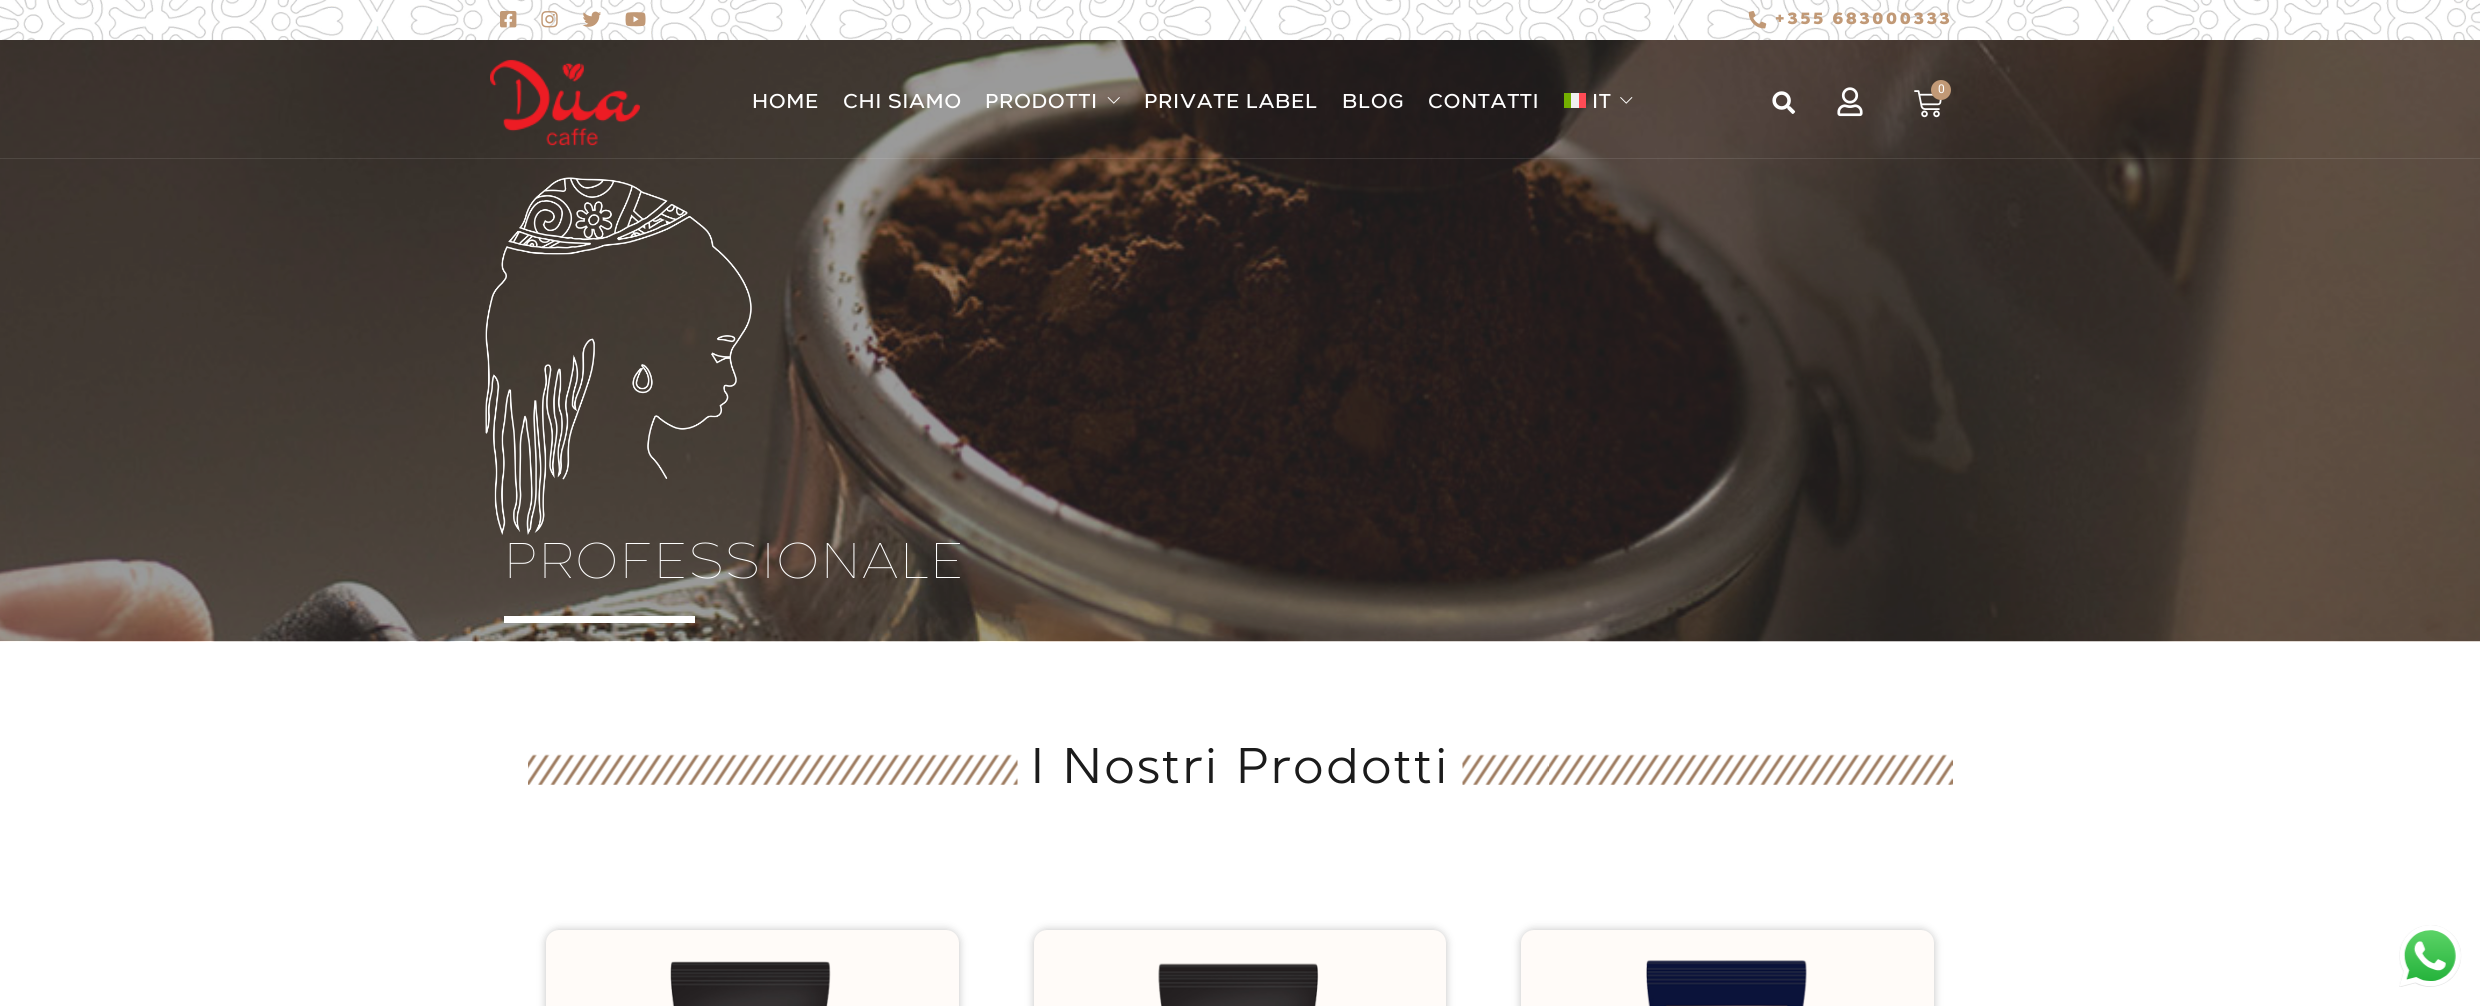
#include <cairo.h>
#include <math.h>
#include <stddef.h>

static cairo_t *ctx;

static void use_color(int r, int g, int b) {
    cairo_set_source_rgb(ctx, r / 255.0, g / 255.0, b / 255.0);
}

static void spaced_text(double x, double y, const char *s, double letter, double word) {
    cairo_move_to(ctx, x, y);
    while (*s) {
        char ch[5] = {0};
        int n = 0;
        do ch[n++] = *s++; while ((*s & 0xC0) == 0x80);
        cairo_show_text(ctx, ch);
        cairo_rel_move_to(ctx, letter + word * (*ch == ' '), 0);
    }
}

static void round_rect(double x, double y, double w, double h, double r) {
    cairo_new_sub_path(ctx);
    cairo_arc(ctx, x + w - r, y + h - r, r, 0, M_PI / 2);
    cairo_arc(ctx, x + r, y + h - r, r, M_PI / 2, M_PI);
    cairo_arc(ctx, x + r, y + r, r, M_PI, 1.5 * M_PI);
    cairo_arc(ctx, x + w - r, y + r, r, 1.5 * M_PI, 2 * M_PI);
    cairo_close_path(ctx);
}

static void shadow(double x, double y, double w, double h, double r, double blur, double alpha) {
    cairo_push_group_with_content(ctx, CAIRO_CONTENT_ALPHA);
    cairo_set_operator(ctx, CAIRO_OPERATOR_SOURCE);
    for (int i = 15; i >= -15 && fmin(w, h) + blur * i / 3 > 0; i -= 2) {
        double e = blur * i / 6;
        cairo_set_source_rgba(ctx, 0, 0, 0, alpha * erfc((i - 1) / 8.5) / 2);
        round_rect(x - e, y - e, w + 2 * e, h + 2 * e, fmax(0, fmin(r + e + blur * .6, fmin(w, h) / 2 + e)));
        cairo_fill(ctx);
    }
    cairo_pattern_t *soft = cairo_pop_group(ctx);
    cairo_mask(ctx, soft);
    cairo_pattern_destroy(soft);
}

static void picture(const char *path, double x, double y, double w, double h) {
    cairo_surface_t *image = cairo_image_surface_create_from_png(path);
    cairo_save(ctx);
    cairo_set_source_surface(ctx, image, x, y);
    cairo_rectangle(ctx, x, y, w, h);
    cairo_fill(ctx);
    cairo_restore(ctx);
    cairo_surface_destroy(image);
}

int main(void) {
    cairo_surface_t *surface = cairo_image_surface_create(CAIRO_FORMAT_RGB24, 2480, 1006);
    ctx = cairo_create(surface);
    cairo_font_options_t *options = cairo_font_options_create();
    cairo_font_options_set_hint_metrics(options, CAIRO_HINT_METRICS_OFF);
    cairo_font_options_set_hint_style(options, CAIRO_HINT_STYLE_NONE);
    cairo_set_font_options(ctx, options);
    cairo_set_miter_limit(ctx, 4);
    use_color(255, 255, 255);
    cairo_paint(ctx);
    picture("img1.png", 0, 0, 2480, 40);
    picture("img2.png", 500, 11, 17, 17);
    picture("img3.png", 541, 11, 17, 17);
    picture("img4.png", 582, 11, 19, 16);
    picture("img5.png", 625, 12, 21, 15);
    picture("img6.png", 1748, 11, 19, 18);
    cairo_select_font_face(ctx, "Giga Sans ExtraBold", CAIRO_FONT_SLANT_NORMAL, CAIRO_FONT_WEIGHT_NORMAL);
    cairo_set_font_size(ctx, 16.25);
    use_color(193, 153, 118);
    spaced_text(1775, 24, "+355 683000333", 2.75, 0);
    picture("img13.png", 0, 40, 2480, 602);
    picture("img7.png", 490, 59, 150, 87);
    picture("img8.png", 1772, 91, 24, 23);
    picture("img9.png", 1837, 87, 26, 30);
    picture("img10.png", 1914, 90, 28, 28);
    cairo_arc(ctx, 1941, 90, 10, 0, 2 * M_PI);
    cairo_fill(ctx);
    cairo_select_font_face(ctx, "Roboto", CAIRO_FONT_SLANT_NORMAL, CAIRO_FONT_WEIGHT_NORMAL);
    cairo_set_font_size(ctx, 12);
    use_color(255, 255, 255);
    cairo_move_to(ctx, 1938, 93);
    cairo_show_text(ctx, "0");
    cairo_select_font_face(ctx, "Giga Sans Medium", CAIRO_FONT_SLANT_NORMAL, CAIRO_FONT_WEIGHT_NORMAL);
    cairo_set_font_size(ctx, 20);
    spaced_text(752, 108, "HOME", 0.6, 0);
    spaced_text(843, 108, "CHI SIAMO", 0.6, 0);
    spaced_text(985, 108, "PRODOTTI", 0.6, 0);
    picture("img11.png", 1107, 97, 13, 7);
    spaced_text(1144, 108, "PRIVATE LABEL", 0.6, 0);
    spaced_text(1342, 108, "BLOG", 0.6, 0);
    spaced_text(1428, 108, "CONTATTI", 0.6, 0);
    use_color(115, 175, 0);
    cairo_rectangle(ctx, 1564, 93, 7, 15);
    cairo_fill(ctx);
    use_color(240, 240, 240);
    cairo_rectangle(ctx, 1571, 93, 8, 15);
    cairo_fill(ctx);
    use_color(255, 75, 85);
    cairo_rectangle(ctx, 1579, 93, 7, 15);
    cairo_fill(ctx);
    use_color(255, 255, 255);
    spaced_text(1592, 108, "IT", 0.6, 0);
    picture("img12.png", 1620, 97, 13, 7);
    cairo_set_source_rgba(ctx, 1, 1, 1, 0.1);
    cairo_rectangle(ctx, 0, 158, 2480, 1);
    cairo_fill(ctx);
    picture("img14.png", 485, 177, 267, 358);
    cairo_select_font_face(ctx, "Giga Sans Thin", CAIRO_FONT_SLANT_NORMAL, CAIRO_FONT_WEIGHT_NORMAL);
    cairo_set_font_size(ctx, 50);
    use_color(255, 255, 255);
    spaced_text(504, 578, "PROFESSIONALE", 1.25, 0);
    cairo_rectangle(ctx, 504, 616, 191, 7);
    cairo_fill(ctx);
    picture("img15.png", 528, 754, 490, 31);
    cairo_select_font_face(ctx, "Giga Sans", CAIRO_FONT_SLANT_NORMAL, CAIRO_FONT_WEIGHT_NORMAL);
    use_color(27, 27, 27);
    spaced_text(1030, 783, "I Nostri Prodotti", 1.25, 2);
    picture("img16.png", 1462, 754, 491, 31);
    use_color(0, 0, 0);
    shadow(546, 930, 413, 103, 13, 4.5, 0.24);
    use_color(255, 251, 248);
    round_rect(546, 930, 413, 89, 13);
    cairo_fill(ctx);
    picture("img17.png", 670, 961, 161, 45);
    use_color(0, 0, 0);
    shadow(1034, 930, 412, 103, 13, 4.5, 0.24);
    use_color(255, 251, 248);
    round_rect(1034, 930, 412, 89, 13);
    cairo_fill(ctx);
    picture("img18.png", 1158, 963, 161, 43);
    use_color(0, 0, 0);
    shadow(1521, 930, 413, 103, 13, 4.5, 0.24);
    use_color(255, 251, 248);
    round_rect(1521, 930, 413, 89, 13);
    cairo_fill(ctx);
    picture("img19.png", 1646, 960, 161, 46);
    picture("img20.png", 2399, 925, 63, 62);
    cairo_surface_write_to_png(surface, "result.png");
    cairo_font_options_destroy(options);
    cairo_destroy(ctx);
    cairo_surface_destroy(surface);
    return 0;
}
